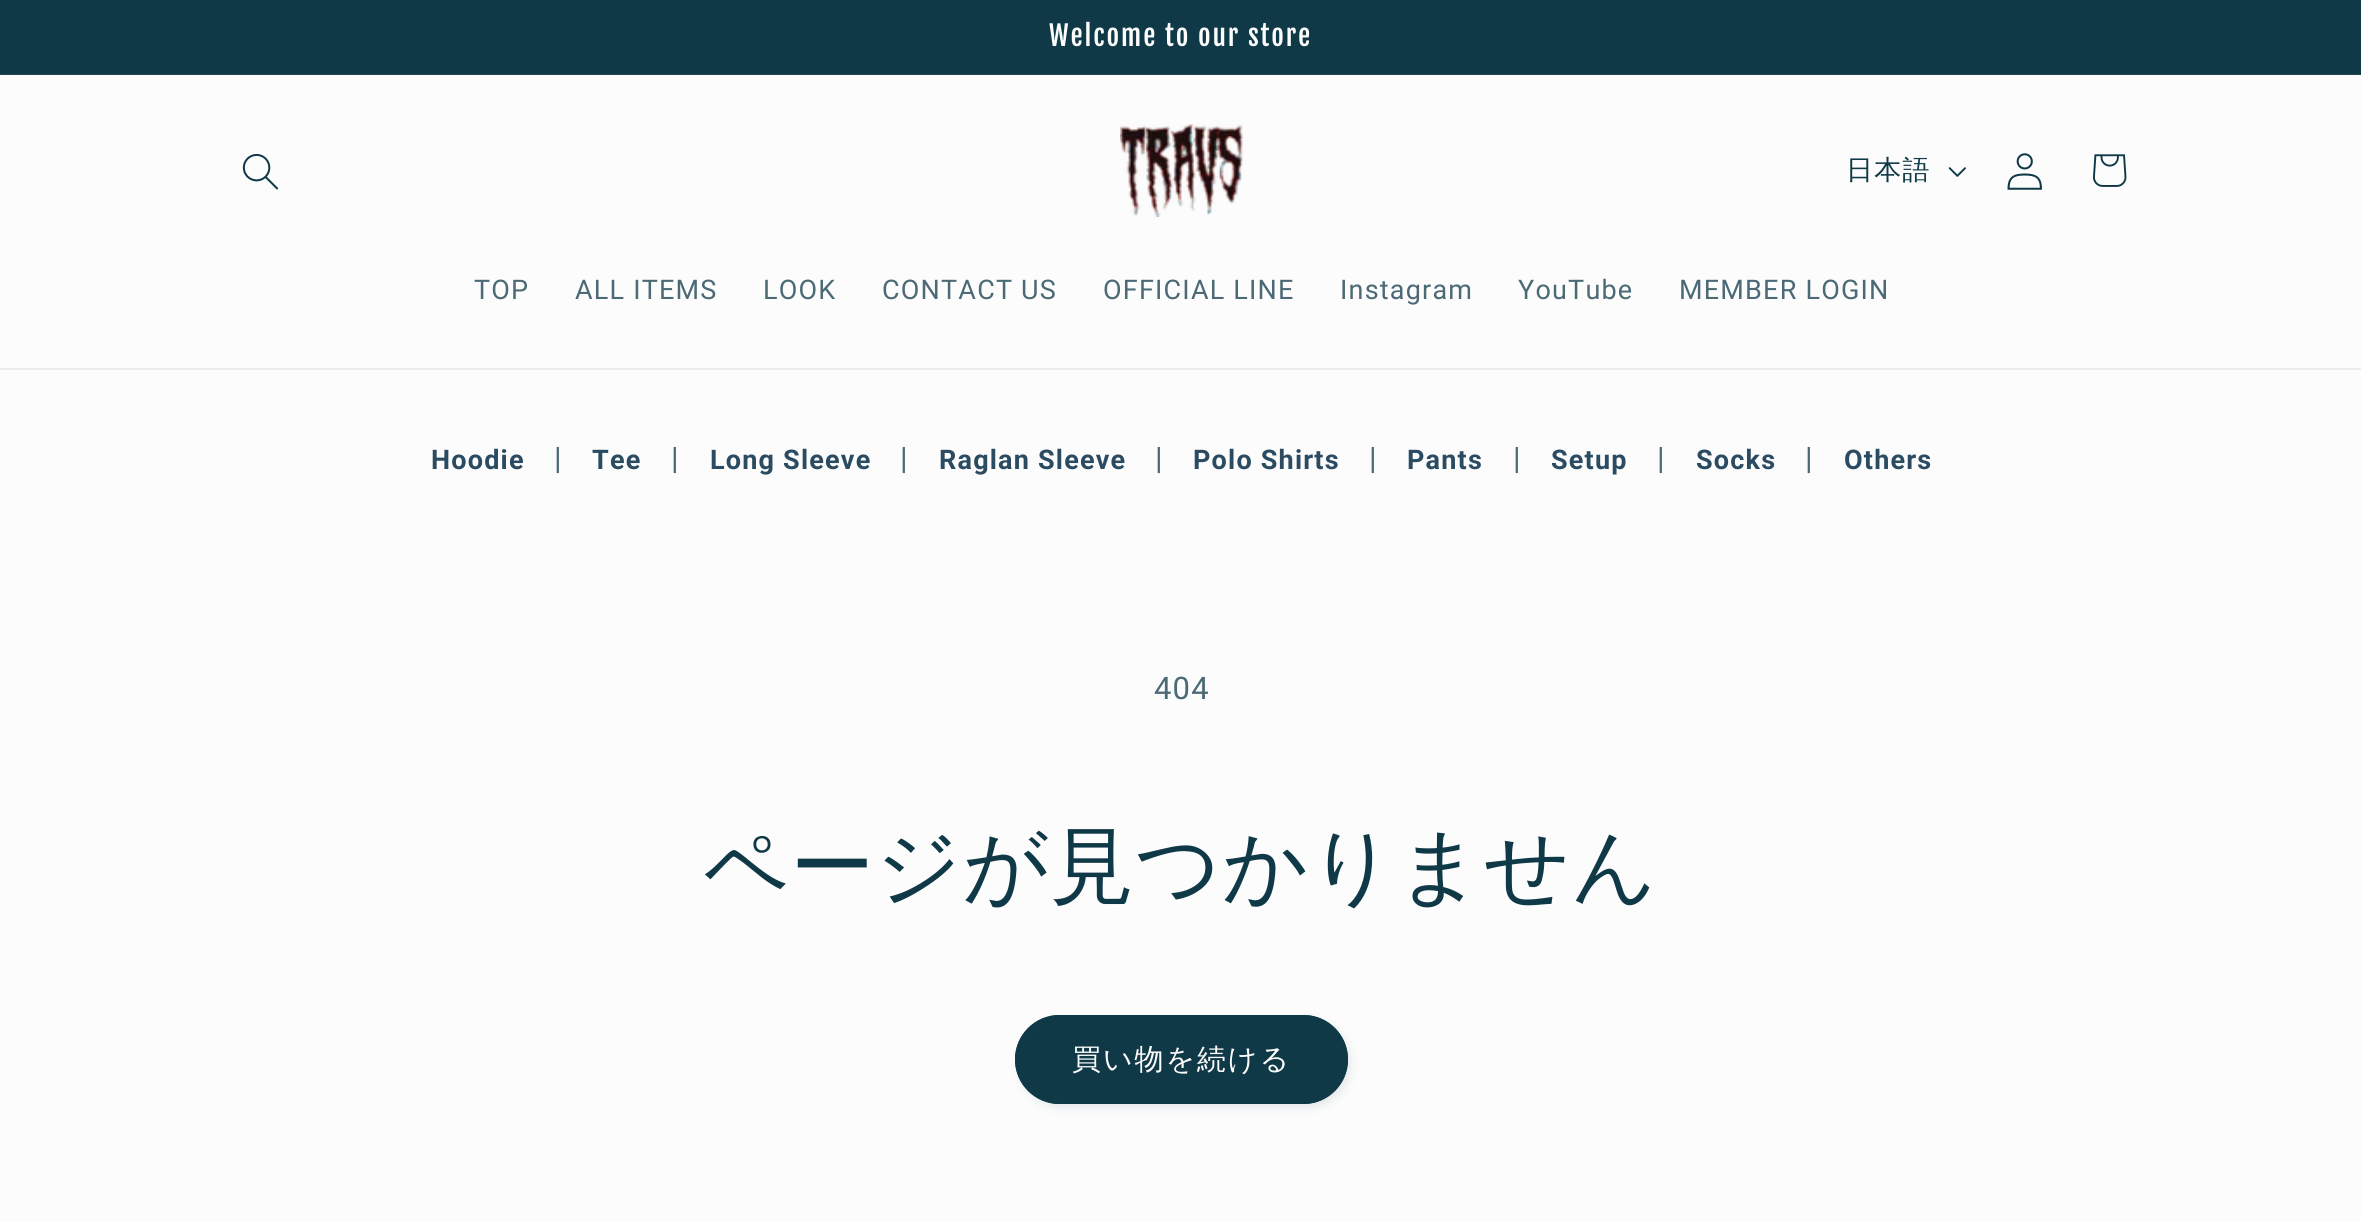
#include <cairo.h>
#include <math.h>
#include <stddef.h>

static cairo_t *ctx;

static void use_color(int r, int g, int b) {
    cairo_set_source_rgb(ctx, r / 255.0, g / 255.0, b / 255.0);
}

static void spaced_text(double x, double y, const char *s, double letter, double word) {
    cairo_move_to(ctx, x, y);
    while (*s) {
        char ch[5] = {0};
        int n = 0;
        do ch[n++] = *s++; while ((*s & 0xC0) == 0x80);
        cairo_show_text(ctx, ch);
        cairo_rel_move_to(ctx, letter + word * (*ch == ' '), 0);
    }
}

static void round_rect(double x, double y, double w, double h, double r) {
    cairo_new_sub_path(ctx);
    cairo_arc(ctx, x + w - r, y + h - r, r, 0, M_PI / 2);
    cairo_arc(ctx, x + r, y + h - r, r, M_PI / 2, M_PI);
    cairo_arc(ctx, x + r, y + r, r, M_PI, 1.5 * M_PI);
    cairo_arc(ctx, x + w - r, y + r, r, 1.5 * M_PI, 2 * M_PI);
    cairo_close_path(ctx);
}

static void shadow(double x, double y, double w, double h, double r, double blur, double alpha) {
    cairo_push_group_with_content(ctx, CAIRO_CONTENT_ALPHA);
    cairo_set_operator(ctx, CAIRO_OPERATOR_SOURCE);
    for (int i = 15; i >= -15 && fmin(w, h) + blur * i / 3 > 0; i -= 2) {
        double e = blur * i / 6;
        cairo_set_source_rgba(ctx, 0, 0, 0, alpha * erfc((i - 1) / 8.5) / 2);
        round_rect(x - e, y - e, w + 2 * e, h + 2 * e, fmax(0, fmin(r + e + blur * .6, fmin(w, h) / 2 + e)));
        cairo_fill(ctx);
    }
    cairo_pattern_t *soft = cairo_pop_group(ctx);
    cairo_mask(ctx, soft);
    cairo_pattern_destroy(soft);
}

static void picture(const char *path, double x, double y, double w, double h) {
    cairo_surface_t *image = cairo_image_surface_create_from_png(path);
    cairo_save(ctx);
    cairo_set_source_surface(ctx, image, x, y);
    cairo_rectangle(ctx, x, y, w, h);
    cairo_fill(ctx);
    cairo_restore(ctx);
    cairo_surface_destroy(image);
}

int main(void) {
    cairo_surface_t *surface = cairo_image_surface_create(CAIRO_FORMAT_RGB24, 2361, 1222);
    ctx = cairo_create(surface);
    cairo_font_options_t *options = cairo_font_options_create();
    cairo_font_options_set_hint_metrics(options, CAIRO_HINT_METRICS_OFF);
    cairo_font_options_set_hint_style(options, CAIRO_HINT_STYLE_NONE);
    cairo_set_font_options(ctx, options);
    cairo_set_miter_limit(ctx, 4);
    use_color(252, 252, 252);
    cairo_paint(ctx);
    use_color(16, 57, 72);
    cairo_rectangle(ctx, 0, 0, 2361, 74);
    cairo_fill(ctx);
    use_color(35, 73, 86);
    cairo_rectangle(ctx, 0, 74, 2361, 1);
    cairo_fill(ctx);
    cairo_select_font_face(ctx, "Fjalla One", CAIRO_FONT_SLANT_NORMAL, CAIRO_FONT_WEIGHT_NORMAL);
    cairo_set_font_size(ctx, 27.25);
    use_color(252, 252, 252);
    spaced_text(1049, 46, "Welcome to our store", 1.9, 0);
    use_color(233, 236, 238);
    cairo_rectangle(ctx, 0, 368, 2361, 2);
    cairo_fill(ctx);
    picture("img1.png", 242, 153, 37, 37);
    picture("img2.png", 1120, 124, 123, 93);
    cairo_select_font_face(ctx, "WenQuanYi Zen Hei Medium", CAIRO_FONT_SLANT_NORMAL, CAIRO_FONT_WEIGHT_NORMAL);
    cairo_set_font_size(ctx, 27);
    use_color(16, 57, 72);
    spaced_text(1846, 179, "日本語", 1.2, 0);
    picture("img3.png", 1948, 167, 18, 10);
    picture("img4.png", 2007, 153, 35, 37);
    picture("img5.png", 2093, 154, 34, 33);
    cairo_select_font_face(ctx, "Roboto", CAIRO_FONT_SLANT_NORMAL, CAIRO_FONT_WEIGHT_NORMAL);
    use_color(75, 106, 117);
    spaced_text(474, 299, "TOP", 1.2, 0);
    spaced_text(575, 299, "ALL ITEMS", 1.2, 0);
    spaced_text(763, 299, "LOOK", 1.2, 0);
    spaced_text(882, 299, "CONTACT US", 1.2, 0);
    spaced_text(1103, 299, "OFFICIAL LINE", 1.2, 0);
    spaced_text(1340, 299, "Instagram", 1.2, 0);
    spaced_text(1518, 299, "YouTube", 1.2, 0);
    spaced_text(1679, 299, "MEMBER LOGIN", 1.2, 0);
    cairo_select_font_face(ctx, "Roboto", CAIRO_FONT_SLANT_NORMAL, CAIRO_FONT_WEIGHT_BOLD);
    use_color(42, 75, 97);
    spaced_text(431, 469, "Hoodie", 1.2, 0);
    cairo_select_font_face(ctx, "Roboto", CAIRO_FONT_SLANT_NORMAL, CAIRO_FONT_WEIGHT_NORMAL);
    cairo_set_font_size(ctx, 31);
    use_color(75, 106, 117);
    spaced_text(554, 469, "|", 1.2, 0);
    cairo_select_font_face(ctx, "Roboto", CAIRO_FONT_SLANT_NORMAL, CAIRO_FONT_WEIGHT_BOLD);
    cairo_set_font_size(ctx, 27);
    use_color(42, 75, 97);
    spaced_text(592, 469, "Tee", 1.2, 0);
    cairo_select_font_face(ctx, "Roboto", CAIRO_FONT_SLANT_NORMAL, CAIRO_FONT_WEIGHT_NORMAL);
    cairo_set_font_size(ctx, 31);
    use_color(75, 106, 117);
    spaced_text(671, 469, "|", 1.2, 0);
    cairo_select_font_face(ctx, "Roboto", CAIRO_FONT_SLANT_NORMAL, CAIRO_FONT_WEIGHT_BOLD);
    cairo_set_font_size(ctx, 27);
    use_color(42, 75, 97);
    spaced_text(710, 469, "Long Sleeve", 1.2, 0);
    cairo_select_font_face(ctx, "Roboto", CAIRO_FONT_SLANT_NORMAL, CAIRO_FONT_WEIGHT_NORMAL);
    cairo_set_font_size(ctx, 31);
    use_color(75, 106, 117);
    spaced_text(900, 469, "|", 1.2, 0);
    cairo_select_font_face(ctx, "Roboto", CAIRO_FONT_SLANT_NORMAL, CAIRO_FONT_WEIGHT_BOLD);
    cairo_set_font_size(ctx, 27);
    use_color(42, 75, 97);
    spaced_text(939, 469, "Raglan Sleeve", 1.2, 0);
    cairo_select_font_face(ctx, "Roboto", CAIRO_FONT_SLANT_NORMAL, CAIRO_FONT_WEIGHT_NORMAL);
    cairo_set_font_size(ctx, 31);
    use_color(75, 106, 117);
    spaced_text(1155, 469, "|", 1.2, 0);
    cairo_select_font_face(ctx, "Roboto", CAIRO_FONT_SLANT_NORMAL, CAIRO_FONT_WEIGHT_BOLD);
    cairo_set_font_size(ctx, 27);
    use_color(42, 75, 97);
    spaced_text(1193, 469, "Polo Shirts", 1.2, 0);
    cairo_select_font_face(ctx, "Roboto", CAIRO_FONT_SLANT_NORMAL, CAIRO_FONT_WEIGHT_NORMAL);
    cairo_set_font_size(ctx, 31);
    use_color(75, 106, 117);
    spaced_text(1369, 469, "|", 1.2, 0);
    cairo_select_font_face(ctx, "Roboto", CAIRO_FONT_SLANT_NORMAL, CAIRO_FONT_WEIGHT_BOLD);
    cairo_set_font_size(ctx, 27);
    use_color(42, 75, 97);
    spaced_text(1407, 469, "Pants", 1.2, 0);
    cairo_select_font_face(ctx, "Roboto", CAIRO_FONT_SLANT_NORMAL, CAIRO_FONT_WEIGHT_NORMAL);
    cairo_set_font_size(ctx, 31);
    use_color(75, 106, 117);
    spaced_text(1513, 469, "|", 1.2, 0);
    cairo_select_font_face(ctx, "Roboto", CAIRO_FONT_SLANT_NORMAL, CAIRO_FONT_WEIGHT_BOLD);
    cairo_set_font_size(ctx, 27);
    use_color(42, 75, 97);
    spaced_text(1551, 469, "Setup", 1.2, 0);
    cairo_select_font_face(ctx, "Roboto", CAIRO_FONT_SLANT_NORMAL, CAIRO_FONT_WEIGHT_NORMAL);
    cairo_set_font_size(ctx, 31);
    use_color(75, 106, 117);
    spaced_text(1657, 469, "|", 1.2, 0);
    cairo_select_font_face(ctx, "Roboto", CAIRO_FONT_SLANT_NORMAL, CAIRO_FONT_WEIGHT_BOLD);
    cairo_set_font_size(ctx, 27);
    use_color(42, 75, 97);
    spaced_text(1696, 469, "Socks", 1.2, 0);
    cairo_select_font_face(ctx, "Roboto", CAIRO_FONT_SLANT_NORMAL, CAIRO_FONT_WEIGHT_NORMAL);
    cairo_set_font_size(ctx, 31);
    use_color(75, 106, 117);
    spaced_text(1805, 469, "|", 1.2, 0);
    cairo_select_font_face(ctx, "Roboto", CAIRO_FONT_SLANT_NORMAL, CAIRO_FONT_WEIGHT_BOLD);
    cairo_set_font_size(ctx, 27);
    use_color(42, 75, 97);
    spaced_text(1844, 469, "Others", 1.2, 0);
    cairo_select_font_face(ctx, "Roboto", CAIRO_FONT_SLANT_NORMAL, CAIRO_FONT_WEIGHT_NORMAL);
    cairo_set_font_size(ctx, 31);
    use_color(75, 106, 117);
    spaced_text(1154, 699, "404", 1.2, 0);
    cairo_select_font_face(ctx, "WenQuanYi Zen Hei Medium", CAIRO_FONT_SLANT_NORMAL, CAIRO_FONT_WEIGHT_NORMAL);
    cairo_set_font_size(ctx, 84);
    use_color(16, 57, 72);
    spaced_text(703, 895, "ページが見つかりません", 1.25, 0);
    use_color(16, 57, 72);
    shadow(1019, 1019, 332, 89, 44.5, 4.5, 0.1);
    use_color(16, 57, 72);
    round_rect(1015, 1015, 333, 89, 44.5);
    cairo_fill(ctx);
    round_rect(1016, 1016, 331, 87, 43.5);
    cairo_stroke(ctx);
    cairo_set_font_size(ctx, 29);
    use_color(252, 252, 252);
    spaced_text(1072, 1069, "買い物を続ける", 1.9, 0);
    cairo_surface_write_to_png(surface, "result.png");
    cairo_font_options_destroy(options);
    cairo_destroy(ctx);
    cairo_surface_destroy(surface);
    return 0;
}
